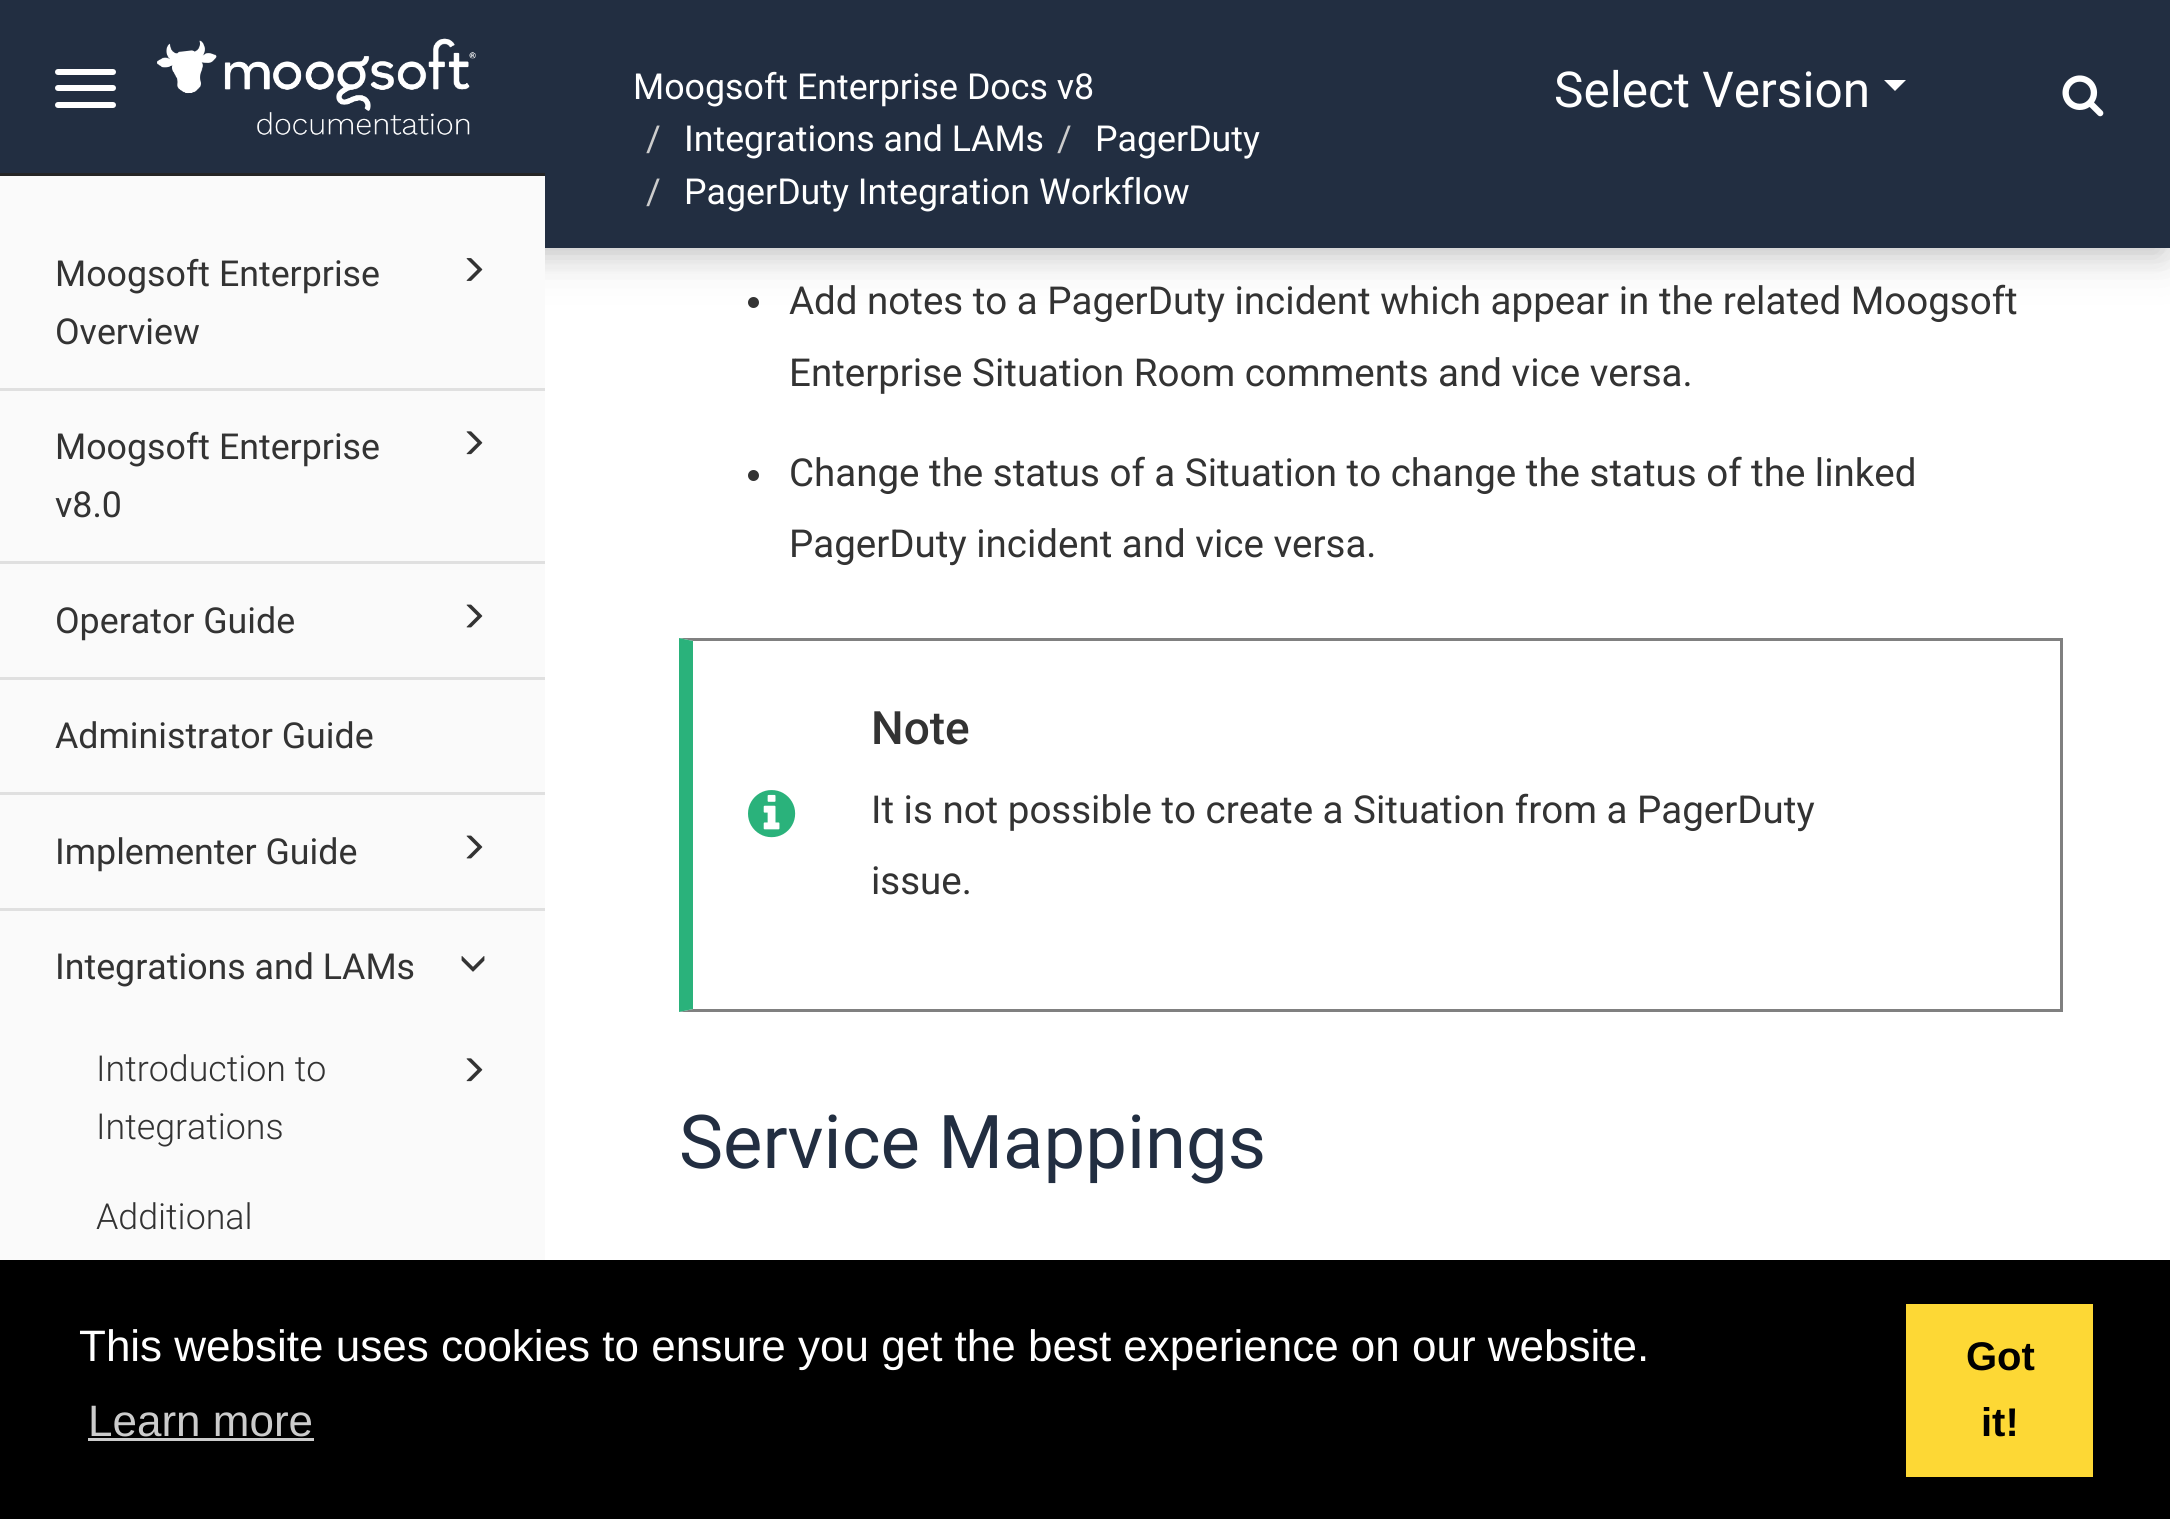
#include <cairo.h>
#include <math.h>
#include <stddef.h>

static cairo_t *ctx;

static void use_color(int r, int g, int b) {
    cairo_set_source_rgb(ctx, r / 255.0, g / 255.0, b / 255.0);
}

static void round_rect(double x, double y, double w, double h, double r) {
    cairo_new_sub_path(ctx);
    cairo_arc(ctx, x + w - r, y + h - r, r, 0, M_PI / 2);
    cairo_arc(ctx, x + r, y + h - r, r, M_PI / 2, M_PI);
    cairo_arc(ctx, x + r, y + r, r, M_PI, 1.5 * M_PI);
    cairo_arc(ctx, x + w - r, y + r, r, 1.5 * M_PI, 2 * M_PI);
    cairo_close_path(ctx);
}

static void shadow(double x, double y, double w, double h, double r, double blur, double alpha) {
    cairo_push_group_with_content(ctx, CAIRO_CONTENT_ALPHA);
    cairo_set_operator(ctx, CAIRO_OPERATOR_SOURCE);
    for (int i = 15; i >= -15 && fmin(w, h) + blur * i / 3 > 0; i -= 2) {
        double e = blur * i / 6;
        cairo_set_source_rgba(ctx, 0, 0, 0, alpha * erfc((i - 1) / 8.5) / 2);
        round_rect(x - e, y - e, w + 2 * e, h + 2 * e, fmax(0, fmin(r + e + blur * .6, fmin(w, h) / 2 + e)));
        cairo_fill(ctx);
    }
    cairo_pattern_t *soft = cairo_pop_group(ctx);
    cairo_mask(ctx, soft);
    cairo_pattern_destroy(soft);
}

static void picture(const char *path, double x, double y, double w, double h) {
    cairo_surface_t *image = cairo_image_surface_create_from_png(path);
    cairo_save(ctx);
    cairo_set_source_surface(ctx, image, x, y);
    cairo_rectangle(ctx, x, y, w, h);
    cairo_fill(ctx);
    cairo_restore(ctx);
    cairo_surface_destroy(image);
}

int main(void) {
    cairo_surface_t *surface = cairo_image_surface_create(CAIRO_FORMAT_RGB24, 2170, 1519);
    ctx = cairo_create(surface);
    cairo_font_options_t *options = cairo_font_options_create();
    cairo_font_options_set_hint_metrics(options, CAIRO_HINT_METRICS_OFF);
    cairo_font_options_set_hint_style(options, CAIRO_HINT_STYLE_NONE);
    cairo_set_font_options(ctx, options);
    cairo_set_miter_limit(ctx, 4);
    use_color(255, 255, 255);
    cairo_paint(ctx);
    use_color(0, 0, 0);
    shadow(14, 33, 2145, 220, 0, 14, 0.15);
    use_color(51, 51, 51);
    cairo_arc(ctx, 753.5, 302.5, 5.5, 0, 2 * M_PI);
    cairo_fill(ctx);
    use_color(0, 0, 0);
    shadow(0, 11, 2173, 248, 0, 25, 0.12);
    use_color(250, 250, 250);
    cairo_rectangle(ctx, 0, 176, 545, 1084);
    cairo_fill(ctx);
    use_color(34, 46, 65);
    cairo_rectangle(ctx, 0, 0, 545, 173);
    cairo_fill(ctx);
    use_color(37, 37, 37);
    cairo_rectangle(ctx, 0, 173, 545, 3);
    cairo_fill(ctx);
    use_color(255, 255, 255);
    round_rect(55, 69, 61, 6, 3);
    cairo_fill(ctx);
    round_rect(55, 85, 61, 6, 3);
    cairo_fill(ctx);
    round_rect(55, 102, 61, 6, 3);
    cairo_fill(ctx);
    picture("img1.png", 157, 38, 319, 97);
    use_color(224, 224, 224);
    cairo_rectangle(ctx, 0, 388, 545, 3);
    cairo_fill(ctx);
    cairo_select_font_face(ctx, "Roboto", CAIRO_FONT_SLANT_NORMAL, CAIRO_FONT_WEIGHT_NORMAL);
    cairo_set_font_size(ctx, 35.75);
    use_color(51, 51, 51);
    cairo_move_to(ctx, 55, 286);
    cairo_show_text(ctx, "Moogsoft Enterprise");
    picture("img2.png", 466, 258, 17, 23);
    cairo_move_to(ctx, 55, 344);
    cairo_show_text(ctx, "Overview");
    use_color(224, 224, 224);
    cairo_rectangle(ctx, 0, 561, 545, 3);
    cairo_fill(ctx);
    use_color(51, 51, 51);
    cairo_move_to(ctx, 55, 459);
    cairo_show_text(ctx, "Moogsoft Enterprise");
    picture("img3.png", 466, 431, 17, 24);
    cairo_move_to(ctx, 55, 517);
    cairo_show_text(ctx, "v8.0");
    use_color(224, 224, 224);
    cairo_rectangle(ctx, 0, 677, 545, 3);
    cairo_fill(ctx);
    use_color(51, 51, 51);
    cairo_move_to(ctx, 55, 633);
    cairo_show_text(ctx, "Operator Guide");
    picture("img4.png", 466, 604, 17, 24);
    use_color(224, 224, 224);
    cairo_rectangle(ctx, 0, 792, 545, 3);
    cairo_fill(ctx);
    use_color(51, 51, 51);
    cairo_move_to(ctx, 55, 748);
    cairo_show_text(ctx, "Administrator Guide");
    use_color(224, 224, 224);
    cairo_rectangle(ctx, 0, 908, 545, 3);
    cairo_fill(ctx);
    use_color(51, 51, 51);
    cairo_move_to(ctx, 55, 864);
    cairo_show_text(ctx, "Implementer Guide");
    picture("img4.png", 466, 835, 17, 24);
    cairo_move_to(ctx, 55, 979);
    cairo_show_text(ctx, "Integrations and LAMs");
    picture("img5.png", 461, 956, 24, 16);
    cairo_select_font_face(ctx, "Roboto Light", CAIRO_FONT_SLANT_NORMAL, CAIRO_FONT_WEIGHT_NORMAL);
    cairo_move_to(ctx, 96, 1081);
    cairo_show_text(ctx, "Introduction to");
    picture("img3.png", 466, 1058, 17, 24);
    cairo_move_to(ctx, 96, 1139);
    cairo_show_text(ctx, "Integrations");
    cairo_move_to(ctx, 96, 1229);
    cairo_show_text(ctx, "Additional");
    use_color(34, 46, 65);
    cairo_rectangle(ctx, 545, 0, 1625, 248);
    cairo_fill(ctx);
    cairo_select_font_face(ctx, "Roboto", CAIRO_FONT_SLANT_NORMAL, CAIRO_FONT_WEIGHT_NORMAL);
    use_color(255, 255, 255);
    cairo_move_to(ctx, 633, 99);
    cairo_show_text(ctx, "Moogsoft Enterprise Docs v8");
    use_color(204, 204, 204);
    cairo_move_to(ctx, 646, 151);
    cairo_show_text(ctx, "/");
    use_color(255, 255, 255);
    cairo_move_to(ctx, 684, 151);
    cairo_show_text(ctx, "Integrations and LAMs");
    use_color(204, 204, 204);
    cairo_move_to(ctx, 1057, 151);
    cairo_show_text(ctx, "/");
    use_color(255, 255, 255);
    cairo_move_to(ctx, 1095, 151);
    cairo_show_text(ctx, "PagerDuty");
    use_color(204, 204, 204);
    cairo_move_to(ctx, 646, 204);
    cairo_show_text(ctx, "/");
    use_color(255, 255, 255);
    cairo_move_to(ctx, 684, 204);
    cairo_show_text(ctx, "PagerDuty Integration Workflow");
    cairo_set_font_size(ctx, 49.5);
    cairo_move_to(ctx, 1554, 107);
    cairo_show_text(ctx, "Select Version");
    cairo_new_path(ctx);
    cairo_move_to(ctx, 1884, 80);
    cairo_line_to(ctx, 1906, 80);
    cairo_line_to(ctx, 1895, 91);
    cairo_close_path(ctx);
    cairo_fill(ctx);
    picture("img6.png", 2062, 75, 42, 42);
    cairo_set_font_size(ctx, 38.5);
    use_color(51, 51, 51);
    cairo_move_to(ctx, 789, 314);
    cairo_show_text(ctx, "Add notes to a PagerDuty incident which appear in the related Moogsoft");
    cairo_move_to(ctx, 789, 386);
    cairo_show_text(ctx, "Enterprise Situation Room comments and vice versa.");
    cairo_new_path(ctx);
    cairo_arc(ctx, 753.5, 475.5, 5.5, 0, 2 * M_PI);
    cairo_fill(ctx);
    cairo_move_to(ctx, 789, 486);
    cairo_show_text(ctx, "Change the status of a Situation to change the status of the linked");
    cairo_move_to(ctx, 789, 557);
    cairo_show_text(ctx, "PagerDuty incident and vice versa.");
    use_color(128, 128, 128);
    cairo_new_path(ctx);
    cairo_move_to(ctx, 679, 638);
    cairo_line_to(ctx, 2062, 638);
    cairo_line_to(ctx, 2060, 641);
    cairo_line_to(ctx, 693, 641);
    cairo_close_path(ctx);
    cairo_fill(ctx);
    cairo_rectangle(ctx, 2060, 638, 3, 374);
    cairo_fill(ctx);
    cairo_new_path(ctx);
    cairo_move_to(ctx, 2062, 1012);
    cairo_line_to(ctx, 679, 1012);
    cairo_line_to(ctx, 693, 1009);
    cairo_line_to(ctx, 2060, 1009);
    cairo_close_path(ctx);
    cairo_fill(ctx);
    use_color(42, 178, 123);
    cairo_new_path(ctx);
    cairo_move_to(ctx, 679, 1012);
    cairo_line_to(ctx, 679, 638);
    cairo_line_to(ctx, 693, 641);
    cairo_line_to(ctx, 693, 1009);
    cairo_close_path(ctx);
    cairo_fill(ctx);
    cairo_select_font_face(ctx, "Roboto Medium", CAIRO_FONT_SLANT_NORMAL, CAIRO_FONT_WEIGHT_NORMAL);
    cairo_set_font_size(ctx, 46);
    use_color(51, 51, 51);
    cairo_move_to(ctx, 871, 744);
    cairo_show_text(ctx, "Note");
    picture("img7.png", 748, 790, 48, 48);
    cairo_select_font_face(ctx, "Roboto", CAIRO_FONT_SLANT_NORMAL, CAIRO_FONT_WEIGHT_NORMAL);
    cairo_set_font_size(ctx, 38.5);
    cairo_move_to(ctx, 871, 823);
    cairo_show_text(ctx, "It is not possible to create a Situation from a PagerDuty");
    cairo_move_to(ctx, 871, 894);
    cairo_show_text(ctx, "issue.");
    cairo_set_font_size(ctx, 74.25);
    use_color(34, 46, 65);
    cairo_move_to(ctx, 679, 1168);
    cairo_show_text(ctx, "Service Mappings");
    use_color(0, 0, 0);
    cairo_rectangle(ctx, 0, 1260, 2170, 259);
    cairo_fill(ctx);
    cairo_select_font_face(ctx, "Liberation Sans", CAIRO_FONT_SLANT_NORMAL, CAIRO_FONT_WEIGHT_NORMAL);
    cairo_set_font_size(ctx, 44);
    use_color(255, 255, 255);
    cairo_move_to(ctx, 79, 1361);
    cairo_show_text(ctx, "This website uses cookies to ensure you get the best experience on our website.");
    use_color(204, 204, 204);
    cairo_move_to(ctx, 88, 1436);
    cairo_show_text(ctx, "Learn more");
    cairo_rectangle(ctx, 88, 1438, 226, 3);
    cairo_fill(ctx);
    use_color(253, 216, 53);
    cairo_rectangle(ctx, 1906, 1304, 187, 173);
    cairo_fill(ctx);
    cairo_select_font_face(ctx, "Liberation Sans", CAIRO_FONT_SLANT_NORMAL, CAIRO_FONT_WEIGHT_BOLD);
    cairo_set_font_size(ctx, 40);
    use_color(0, 0, 0);
    cairo_move_to(ctx, 1966, 1370);
    cairo_show_text(ctx, "Got");
    cairo_move_to(ctx, 1981, 1436);
    cairo_show_text(ctx, "it!");
    cairo_surface_write_to_png(surface, "result.png");
    cairo_font_options_destroy(options);
    cairo_destroy(ctx);
    cairo_surface_destroy(surface);
    return 0;
}
